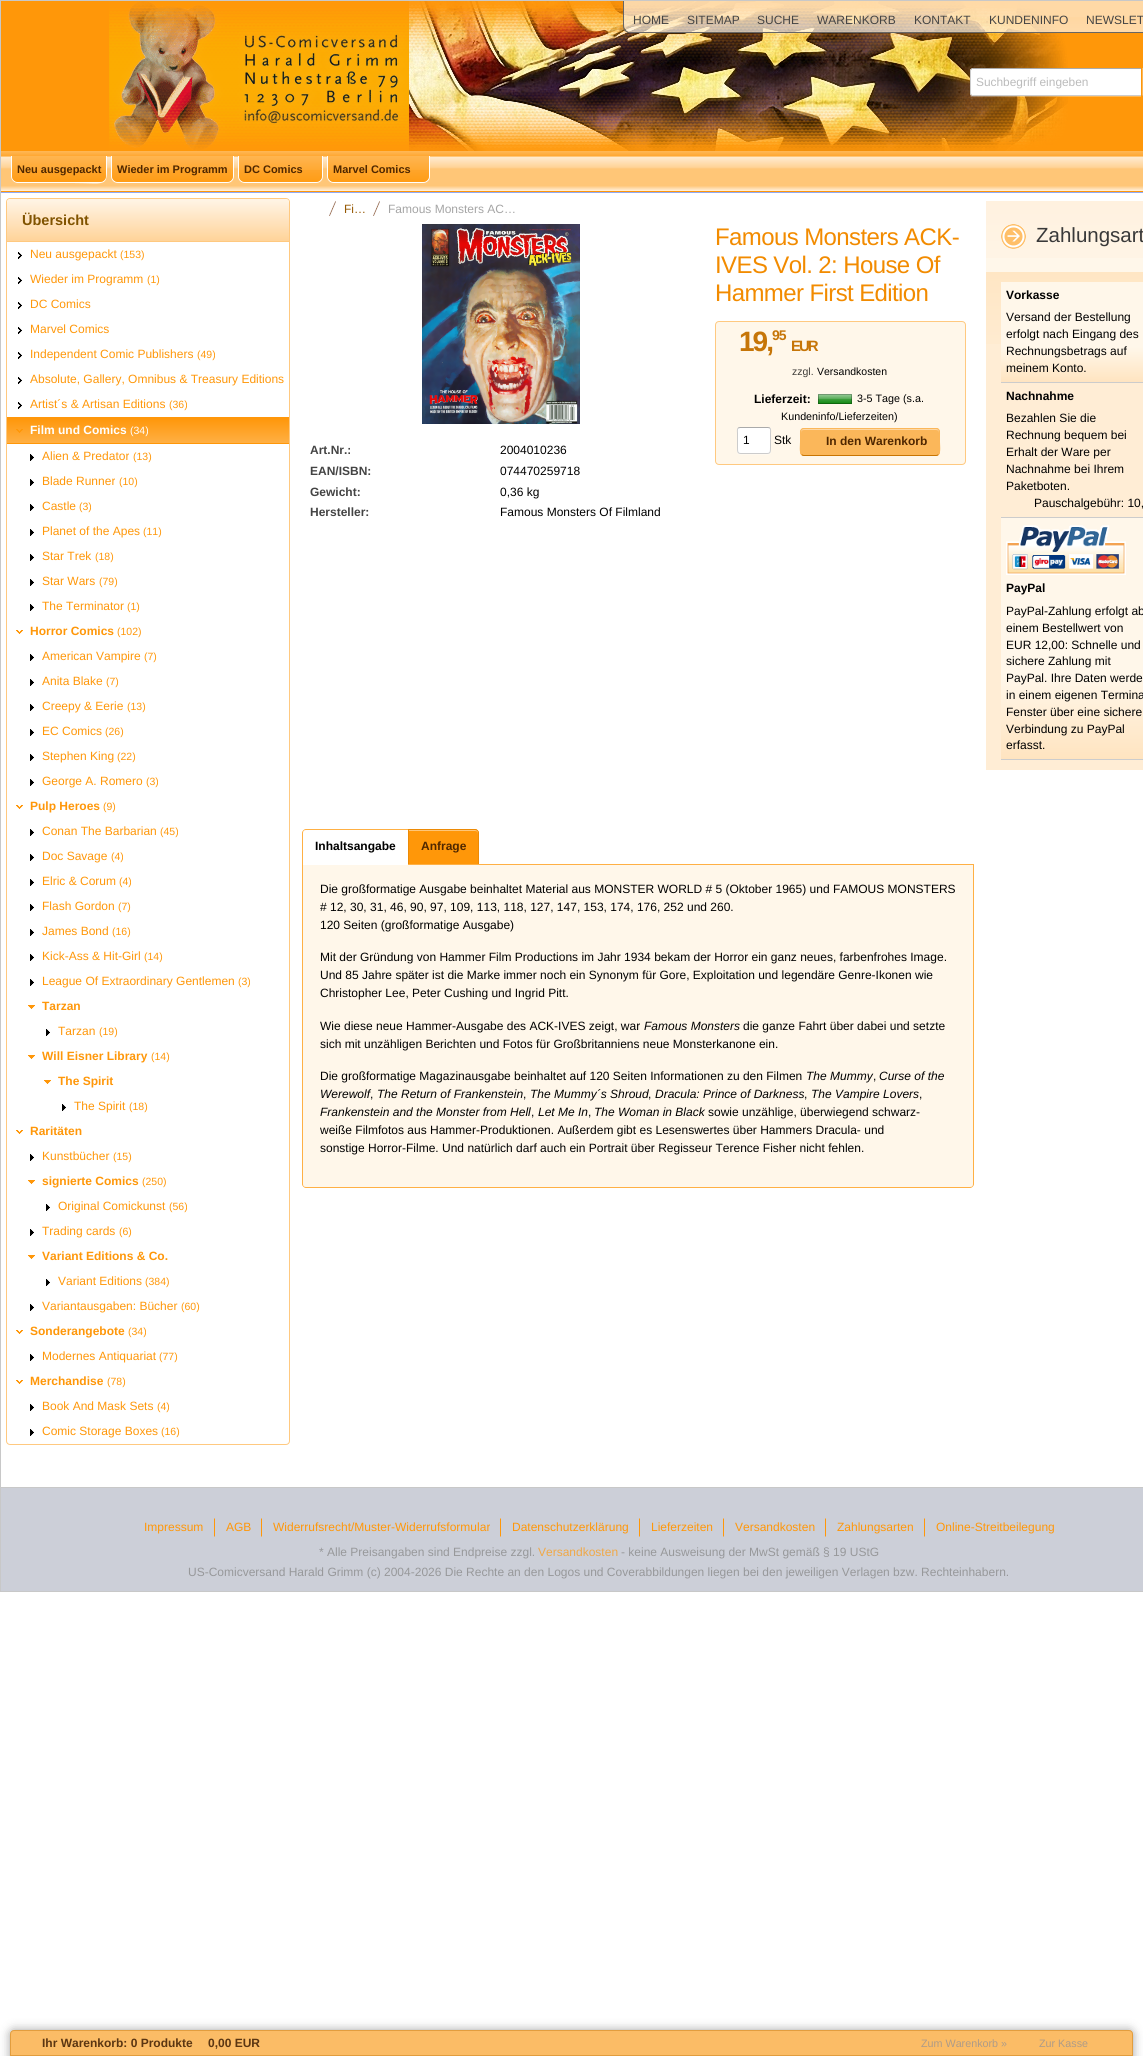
#include <cairo.h>
#include <math.h>
#include <stddef.h>

static cairo_t *ctx;

static void use_color(int r, int g, int b) {
    cairo_set_source_rgb(ctx, r / 255.0, g / 255.0, b / 255.0);
}

static void spaced_text(double x, double y, const char *s, double letter, double word) {
    cairo_move_to(ctx, x, y);
    while (*s) {
        char ch[5] = {0};
        int n = 0;
        do ch[n++] = *s++; while ((*s & 0xC0) == 0x80);
        cairo_show_text(ctx, ch);
        cairo_rel_move_to(ctx, letter + word * (*ch == ' '), 0);
    }
}

static void round_rect(double x, double y, double w, double h, double r) {
    cairo_new_sub_path(ctx);
    cairo_arc(ctx, x + w - r, y + h - r, r, 0, M_PI / 2);
    cairo_arc(ctx, x + r, y + h - r, r, M_PI / 2, M_PI);
    cairo_arc(ctx, x + r, y + r, r, M_PI, 1.5 * M_PI);
    cairo_arc(ctx, x + w - r, y + r, r, 1.5 * M_PI, 2 * M_PI);
    cairo_close_path(ctx);
}

static void shadow(double x, double y, double w, double h, double r, double blur, double alpha) {
    cairo_push_group_with_content(ctx, CAIRO_CONTENT_ALPHA);
    cairo_set_operator(ctx, CAIRO_OPERATOR_SOURCE);
    for (int i = 15; i >= -15 && fmin(w, h) + blur * i / 3 > 0; i -= 2) {
        double e = blur * i / 6;
        cairo_set_source_rgba(ctx, 0, 0, 0, alpha * erfc((i - 1) / 8.5) / 2);
        round_rect(x - e, y - e, w + 2 * e, h + 2 * e, fmax(0, fmin(r + e + blur * .6, fmin(w, h) / 2 + e)));
        cairo_fill(ctx);
    }
    cairo_pattern_t *soft = cairo_pop_group(ctx);
    cairo_mask(ctx, soft);
    cairo_pattern_destroy(soft);
}

static void picture(const char *path, double x, double y, double w, double h) {
    cairo_surface_t *image = cairo_image_surface_create_from_png(path);
    cairo_save(ctx);
    cairo_set_source_surface(ctx, image, x, y);
    cairo_rectangle(ctx, x, y, w, h);
    cairo_fill(ctx);
    cairo_restore(ctx);
    cairo_surface_destroy(image);
}

int main(void) {
    cairo_surface_t *surface = cairo_image_surface_create(CAIRO_FORMAT_RGB24, 1143, 2056);
    ctx = cairo_create(surface);
    cairo_font_options_t *options = cairo_font_options_create();
    cairo_font_options_set_hint_metrics(options, CAIRO_HINT_METRICS_OFF);
    cairo_font_options_set_hint_style(options, CAIRO_HINT_STYLE_NONE);
    cairo_set_font_options(ctx, options);
    cairo_set_miter_limit(ctx, 4);
    cairo_pattern_t *gradient;
    use_color(255, 255, 255);
    cairo_paint(ctx);
    cairo_rectangle(ctx, 0.5, 0.5, 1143, 1591);
    use_color(200, 200, 200);
    cairo_set_line_width(ctx, 1);
    cairo_stroke(ctx);
    use_color(255, 151, 9);
    cairo_rectangle(ctx, 1, 1, 1142, 191);
    cairo_fill(ctx);
    picture("img1.png", 109, 1, 959, 150);
    use_color(102, 102, 102);
    cairo_set_fill_rule(ctx, CAIRO_FILL_RULE_EVEN_ODD);
    cairo_new_path(ctx);
    cairo_move_to(ctx, 623, 1);
    cairo_line_to(ctx, 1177, 1);
    cairo_line_to(ctx, 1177, 33);
    cairo_line_to(ctx, 630, 33);
    cairo_curve_to(ctx, 626, 33, 623, 30, 623, 26);
    cairo_close_path(ctx);
    cairo_move_to(ctx, 624, 1);
    cairo_line_to(ctx, 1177, 1);
    cairo_line_to(ctx, 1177, 32);
    cairo_line_to(ctx, 630, 32);
    cairo_curve_to(ctx, 627, 32, 624, 29, 624, 26);
    cairo_close_path(ctx);
    cairo_fill(ctx);
    cairo_set_source_rgba(ctx, 1, 1, 1, 0.6);
    cairo_new_path(ctx);
    cairo_move_to(ctx, 624, 1);
    cairo_line_to(ctx, 678, 1);
    cairo_line_to(ctx, 678, 32);
    cairo_line_to(ctx, 631, 32);
    cairo_curve_to(ctx, 627, 32, 624, 29, 624, 25);
    cairo_close_path(ctx);
    cairo_fill(ctx);
    picture("img2.png", 624, 1, 54, 31);
    cairo_select_font_face(ctx, "Liberation Sans", CAIRO_FONT_SLANT_NORMAL, CAIRO_FONT_WEIGHT_NORMAL);
    cairo_set_font_size(ctx, 12);
    use_color(68, 68, 68);
    cairo_move_to(ctx, 633, 24);
    cairo_show_text(ctx, "HOME");
    cairo_set_source_rgba(ctx, 1, 1, 1, 0.6);
    cairo_rectangle(ctx, 678, 1, 70, 31);
    cairo_fill(ctx);
    picture("img3.png", 678, 1, 70, 31);
    use_color(68, 68, 68);
    cairo_move_to(ctx, 687, 24);
    cairo_show_text(ctx, "SITEMAP");
    cairo_set_source_rgba(ctx, 1, 1, 1, 0.6);
    cairo_rectangle(ctx, 748, 1, 60, 31);
    cairo_fill(ctx);
    picture("img4.png", 748, 1, 60, 31);
    use_color(68, 68, 68);
    cairo_move_to(ctx, 757, 24);
    cairo_show_text(ctx, "SUCHE");
    cairo_set_source_rgba(ctx, 1, 1, 1, 0.6);
    cairo_rectangle(ctx, 808, 1, 97, 31);
    cairo_fill(ctx);
    picture("img5.png", 808, 1, 97, 31);
    use_color(68, 68, 68);
    cairo_move_to(ctx, 817, 24);
    cairo_show_text(ctx, "WARENKORB");
    cairo_set_source_rgba(ctx, 1, 1, 1, 0.6);
    cairo_rectangle(ctx, 905, 1, 75, 31);
    cairo_fill(ctx);
    picture("img6.png", 905, 1, 75, 31);
    use_color(68, 68, 68);
    cairo_move_to(ctx, 914, 24);
    cairo_show_text(ctx, "KONTAKT");
    cairo_set_source_rgba(ctx, 1, 1, 1, 0.6);
    cairo_rectangle(ctx, 980, 1, 97, 31);
    cairo_fill(ctx);
    picture("img7.png", 980, 1, 97, 31);
    use_color(68, 68, 68);
    cairo_move_to(ctx, 989, 24);
    cairo_show_text(ctx, "KUNDENINFO");
    use_color(255, 213, 157);
    cairo_rectangle(ctx, 1077, 1, 66, 31);
    cairo_fill(ctx);
    picture("img8.png", 1077, 1, 66, 31);
    use_color(68, 68, 68);
    cairo_move_to(ctx, 1086, 24);
    cairo_show_text(ctx, "NEWSLET");
    cairo_set_source_rgba(ctx, 1, 1, 1, 0.3);
    cairo_set_fill_rule(ctx, CAIRO_FILL_RULE_WINDING);
    cairo_new_path(ctx);
    cairo_move_to(ctx, 970, 93);
    cairo_curve_to(ctx, 970, 95, 970, 97, 972, 97);
    cairo_line_to(ctx, 1141, 97);
    cairo_line_to(ctx, 1141, 96);
    cairo_line_to(ctx, 973, 96);
    cairo_curve_to(ctx, 971, 96, 970, 95, 970, 93);
    cairo_close_path(ctx);
    cairo_fill(ctx);
    use_color(255, 255, 255);
    cairo_new_path(ctx);
    cairo_move_to(ctx, 973, 68);
    cairo_line_to(ctx, 1141, 68);
    cairo_line_to(ctx, 1141, 96);
    cairo_line_to(ctx, 973, 96);
    cairo_curve_to(ctx, 971.5, 96, 970, 94.5, 970, 93);
    cairo_line_to(ctx, 970, 71);
    cairo_curve_to(ctx, 970, 69.5, 971.5, 68, 973, 68);
    cairo_close_path(ctx);
    cairo_fill(ctx);
    use_color(170, 170, 170);
    cairo_new_path(ctx);
    cairo_move_to(ctx, 973, 68);
    cairo_line_to(ctx, 971, 69);
    cairo_line_to(ctx, 972, 70);
    cairo_line_to(ctx, 972, 69);
    cairo_line_to(ctx, 1141, 69);
    cairo_line_to(ctx, 1141, 68);
    cairo_close_path(ctx);
    cairo_fill(ctx);
    use_color(204, 204, 204);
    cairo_new_path(ctx);
    cairo_move_to(ctx, 1141, 96);
    cairo_line_to(ctx, 1141, 95);
    cairo_line_to(ctx, 972, 95);
    cairo_line_to(ctx, 972, 94);
    cairo_line_to(ctx, 971, 95);
    cairo_line_to(ctx, 973, 96);
    cairo_close_path(ctx);
    cairo_fill(ctx);
    cairo_new_path(ctx);
    cairo_move_to(ctx, 970, 71);
    cairo_line_to(ctx, 970, 93);
    cairo_curve_to(ctx, 970, 94, 970, 95, 971, 95);
    cairo_line_to(ctx, 971.5, 94.5);
    cairo_curve_to(ctx, 971, 94, 971, 93.5, 971, 93);
    cairo_line_to(ctx, 971, 71);
    cairo_curve_to(ctx, 971, 70.5, 971, 70, 971.5, 69.5);
    cairo_line_to(ctx, 971, 69);
    cairo_curve_to(ctx, 970, 69, 970, 70, 970, 71);
    cairo_close_path(ctx);
    cairo_fill(ctx);
    cairo_set_font_size(ctx, 11.9);
    use_color(187, 187, 187);
    cairo_move_to(ctx, 976, 86);
    cairo_show_text(ctx, "Suchbegriff eingeben");
    use_color(251, 183, 90);
    cairo_rectangle(ctx, 1142, 68, 1, 28);
    cairo_fill(ctx);
    use_color(200, 117, 4);
    cairo_new_path(ctx);
    cairo_move_to(ctx, 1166, 96);
    cairo_curve_to(ctx, 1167, 96, 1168, 95.5, 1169, 95);
    cairo_line_to(ctx, 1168, 94);
    cairo_curve_to(ctx, 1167.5, 94.5, 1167, 95, 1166, 95);
    cairo_line_to(ctx, 1143, 95);
    cairo_line_to(ctx, 1142, 96);
    cairo_close_path(ctx);
    cairo_fill(ctx);
    use_color(251, 183, 90);
    cairo_new_path(ctx);
    cairo_move_to(ctx, 1142, 68);
    cairo_line_to(ctx, 1142, 96);
    cairo_line_to(ctx, 1143, 95);
    cairo_line_to(ctx, 1143, 69);
    cairo_close_path(ctx);
    cairo_fill(ctx);
    picture("img9.png", 1, 151, 1142, 42);
    use_color(255, 255, 255);
    cairo_set_fill_rule(ctx, CAIRO_FILL_RULE_EVEN_ODD);
    cairo_new_path(ctx);
    cairo_move_to(ctx, 11, 156);
    cairo_line_to(ctx, 107, 156);
    cairo_curve_to(ctx, 107, 189, 110, 183, 73, 183);
    cairo_line_to(ctx, 17, 183);
    cairo_curve_to(ctx, 13, 182, 11, 179, 11, 176);
    cairo_close_path(ctx);
    cairo_move_to(ctx, 12, 156);
    cairo_line_to(ctx, 106, 156);
    cairo_line_to(ctx, 106, 176);
    cairo_curve_to(ctx, 106, 179, 103, 182, 100, 182);
    cairo_line_to(ctx, 18, 182);
    cairo_curve_to(ctx, 15, 182, 12, 179, 12, 176);
    cairo_close_path(ctx);
    cairo_fill(ctx);
    use_color(255, 151, 9);
    cairo_new_path(ctx);
    cairo_move_to(ctx, 12, 156);
    cairo_line_to(ctx, 106, 156);
    cairo_line_to(ctx, 106, 176);
    cairo_curve_to(ctx, 106, 179.5, 103.5, 182, 100, 182);
    cairo_line_to(ctx, 18, 182);
    cairo_curve_to(ctx, 14.5, 182, 12, 179.5, 12, 176);
    cairo_close_path(ctx);
    cairo_fill(ctx);
    picture("img10.png", 12, 156, 94, 26);
    cairo_select_font_face(ctx, "Liberation Sans", CAIRO_FONT_SLANT_NORMAL, CAIRO_FONT_WEIGHT_BOLD);
    cairo_set_font_size(ctx, 11);
    use_color(79, 39, 0);
    cairo_move_to(ctx, 17, 173);
    cairo_show_text(ctx, "Neu ausgepackt");
    use_color(255, 255, 255);
    cairo_new_path(ctx);
    cairo_move_to(ctx, 111, 156);
    cairo_line_to(ctx, 234, 156);
    cairo_line_to(ctx, 234, 176);
    cairo_curve_to(ctx, 234, 180, 231, 183, 227, 183);
    cairo_line_to(ctx, 118, 183);
    cairo_curve_to(ctx, 114, 183, 111, 180, 111, 176);
    cairo_close_path(ctx);
    cairo_move_to(ctx, 112, 156);
    cairo_line_to(ctx, 233, 156);
    cairo_line_to(ctx, 233, 176);
    cairo_curve_to(ctx, 233, 179, 230, 182, 227, 182);
    cairo_line_to(ctx, 118, 182);
    cairo_curve_to(ctx, 115, 182, 112, 179, 112, 176);
    cairo_close_path(ctx);
    cairo_fill(ctx);
    use_color(255, 151, 9);
    cairo_new_path(ctx);
    cairo_move_to(ctx, 112, 156);
    cairo_line_to(ctx, 233, 156);
    cairo_line_to(ctx, 233, 176);
    cairo_curve_to(ctx, 233, 179.5, 230.5, 182, 227, 182);
    cairo_line_to(ctx, 118, 182);
    cairo_curve_to(ctx, 114.5, 182, 112, 179.5, 112, 176);
    cairo_close_path(ctx);
    cairo_fill(ctx);
    picture("img11.png", 112, 156, 121, 26);
    use_color(79, 39, 0);
    cairo_move_to(ctx, 117, 173);
    cairo_show_text(ctx, "Wieder im Programm");
    use_color(255, 255, 255);
    cairo_new_path(ctx);
    cairo_move_to(ctx, 238, 156);
    cairo_line_to(ctx, 323, 156);
    cairo_line_to(ctx, 323, 176);
    cairo_curve_to(ctx, 323, 180, 320, 183, 316, 183);
    cairo_line_to(ctx, 245, 183);
    cairo_curve_to(ctx, 241, 183, 238, 180, 238, 176);
    cairo_close_path(ctx);
    cairo_move_to(ctx, 239, 156);
    cairo_line_to(ctx, 322, 156);
    cairo_line_to(ctx, 322, 176);
    cairo_curve_to(ctx, 322, 179, 319, 182, 316, 182);
    cairo_line_to(ctx, 245, 182);
    cairo_curve_to(ctx, 242, 182, 239, 179, 239, 176);
    cairo_close_path(ctx);
    cairo_fill(ctx);
    use_color(255, 151, 9);
    cairo_new_path(ctx);
    cairo_move_to(ctx, 239, 156);
    cairo_line_to(ctx, 322, 156);
    cairo_line_to(ctx, 322, 176);
    cairo_curve_to(ctx, 322, 179.5, 319.5, 182, 316, 182);
    cairo_line_to(ctx, 245, 182);
    cairo_curve_to(ctx, 241.5, 182, 239, 179.5, 239, 176);
    cairo_close_path(ctx);
    cairo_fill(ctx);
    picture("img12.png", 239, 156, 83, 26);
    use_color(79, 39, 0);
    cairo_move_to(ctx, 244, 173);
    cairo_show_text(ctx, "DC Comics");
    use_color(255, 255, 255);
    cairo_new_path(ctx);
    cairo_move_to(ctx, 327, 156);
    cairo_line_to(ctx, 430, 156);
    cairo_line_to(ctx, 430, 176);
    cairo_curve_to(ctx, 430, 180, 427, 183, 423, 183);
    cairo_line_to(ctx, 334, 183);
    cairo_curve_to(ctx, 330, 183, 327, 180, 327, 176);
    cairo_close_path(ctx);
    cairo_move_to(ctx, 328, 156);
    cairo_line_to(ctx, 429, 156);
    cairo_line_to(ctx, 429, 176);
    cairo_curve_to(ctx, 429, 179, 426, 182, 423, 182);
    cairo_line_to(ctx, 334, 182);
    cairo_curve_to(ctx, 331, 182, 328, 179, 328, 176);
    cairo_close_path(ctx);
    cairo_fill(ctx);
    use_color(255, 151, 9);
    cairo_new_path(ctx);
    cairo_move_to(ctx, 328, 156);
    cairo_line_to(ctx, 429, 156);
    cairo_line_to(ctx, 429, 176);
    cairo_curve_to(ctx, 429, 179.5, 426.5, 182, 423, 182);
    cairo_line_to(ctx, 334, 182);
    cairo_curve_to(ctx, 330.5, 182, 328, 179.5, 328, 176);
    cairo_close_path(ctx);
    cairo_fill(ctx);
    picture("img13.png", 328, 156, 101, 26);
    use_color(79, 39, 0);
    cairo_move_to(ctx, 333, 173);
    cairo_show_text(ctx, "Marvel Comics");
    round_rect(6.5, 198.5, 283, 1246, 3.5);
    use_color(255, 201, 128);
    cairo_stroke(ctx);
    picture("img14.png", 7, 199, 282, 42);
    cairo_rectangle(ctx, 7, 241, 282, 1);
    cairo_fill(ctx);
    cairo_set_font_size(ctx, 14.5);
    use_color(128, 83, 0);
    cairo_move_to(ctx, 22, 225);
    cairo_show_text(ctx, "Übersicht");
    picture("img15.png", 18, 252, 4, 7);
    cairo_select_font_face(ctx, "Liberation Sans", CAIRO_FONT_SLANT_NORMAL, CAIRO_FONT_WEIGHT_NORMAL);
    cairo_set_font_size(ctx, 12);
    use_color(255, 151, 9);
    cairo_move_to(ctx, 30, 258);
    cairo_show_text(ctx, "Neu ausgepackt");
    cairo_set_font_size(ctx, 10.5);
    cairo_move_to(ctx, 120, 258);
    cairo_show_text(ctx, "(153)");
    picture("img15.png", 18, 277, 4, 7);
    cairo_set_font_size(ctx, 12);
    cairo_move_to(ctx, 30, 283);
    cairo_show_text(ctx, "Wieder im Programm");
    cairo_set_font_size(ctx, 10.5);
    cairo_move_to(ctx, 147, 283);
    cairo_show_text(ctx, "(1)");
    picture("img15.png", 18, 302, 4, 7);
    cairo_set_font_size(ctx, 12);
    cairo_move_to(ctx, 30, 308);
    cairo_show_text(ctx, "DC Comics");
    picture("img15.png", 18, 327, 4, 7);
    cairo_move_to(ctx, 30, 333);
    cairo_show_text(ctx, "Marvel Comics");
    picture("img15.png", 18, 352, 4, 7);
    cairo_move_to(ctx, 30, 358);
    cairo_show_text(ctx, "Independent Comic Publishers");
    cairo_set_font_size(ctx, 10.5);
    cairo_move_to(ctx, 197, 358);
    cairo_show_text(ctx, "(49)");
    picture("img15.png", 18, 377, 4, 7);
    cairo_set_font_size(ctx, 12);
    cairo_move_to(ctx, 30, 383);
    cairo_show_text(ctx, "Absolute, Gallery, Omnibus & Treasury Editions");
    picture("img15.png", 18, 402, 4, 7);
    cairo_move_to(ctx, 30, 408);
    cairo_show_text(ctx, "Artist´s & Artisan Editions");
    cairo_set_font_size(ctx, 10.5);
    cairo_move_to(ctx, 169, 408);
    cairo_show_text(ctx, "(36)");
    cairo_rectangle(ctx, 7, 443, 282, 1);
    cairo_fill(ctx);
    gradient = cairo_pattern_create_linear(148, 418, 148, 443);
    cairo_pattern_add_color_stop_rgba(gradient, 0, 1, 0.592, 0.035, 1);
    cairo_pattern_add_color_stop_rgba(gradient, 1, 1, 0.69, 0.267, 1);
    cairo_set_source(ctx, gradient);
    cairo_pattern_destroy(gradient);
    cairo_rectangle(ctx, 7, 418, 282, 25);
    cairo_fill(ctx);
    use_color(255, 151, 9);
    cairo_rectangle(ctx, 7, 417, 282, 1);
    cairo_fill(ctx);
    picture("img16.png", 16, 429, 7, 4);
    cairo_select_font_face(ctx, "Liberation Sans", CAIRO_FONT_SLANT_NORMAL, CAIRO_FONT_WEIGHT_BOLD);
    cairo_set_font_size(ctx, 12);
    use_color(255, 255, 255);
    cairo_move_to(ctx, 30, 434);
    cairo_show_text(ctx, "Film und Comics");
    cairo_select_font_face(ctx, "Liberation Sans", CAIRO_FONT_SLANT_NORMAL, CAIRO_FONT_WEIGHT_NORMAL);
    cairo_set_font_size(ctx, 10.5);
    cairo_move_to(ctx, 130, 434);
    cairo_show_text(ctx, "(34)");
    picture("img17.png", 30, 454, 4, 7);
    cairo_set_font_size(ctx, 12);
    use_color(255, 151, 9);
    cairo_move_to(ctx, 42, 460);
    cairo_show_text(ctx, "Alien & Predator");
    cairo_set_font_size(ctx, 10.5);
    cairo_move_to(ctx, 133, 460);
    cairo_show_text(ctx, "(13)");
    picture("img17.png", 30, 479, 4, 7);
    cairo_set_font_size(ctx, 12);
    cairo_move_to(ctx, 42, 485);
    cairo_show_text(ctx, "Blade Runner");
    cairo_set_font_size(ctx, 10.5);
    cairo_move_to(ctx, 119, 485);
    cairo_show_text(ctx, "(10)");
    picture("img17.png", 30, 504, 4, 7);
    cairo_set_font_size(ctx, 12);
    cairo_move_to(ctx, 42, 510);
    cairo_show_text(ctx, "Castle");
    cairo_set_font_size(ctx, 10.5);
    cairo_move_to(ctx, 79, 510);
    cairo_show_text(ctx, "(3)");
    picture("img17.png", 30, 529, 4, 7);
    cairo_set_font_size(ctx, 12);
    cairo_move_to(ctx, 42, 535);
    cairo_show_text(ctx, "Planet of the Apes");
    cairo_set_font_size(ctx, 10.5);
    cairo_move_to(ctx, 143, 535);
    cairo_show_text(ctx, "(11)");
    picture("img17.png", 30, 554, 4, 7);
    cairo_set_font_size(ctx, 12);
    cairo_move_to(ctx, 42, 560);
    cairo_show_text(ctx, "Star Trek");
    cairo_set_font_size(ctx, 10.5);
    cairo_move_to(ctx, 95, 560);
    cairo_show_text(ctx, "(18)");
    picture("img17.png", 30, 579, 4, 7);
    cairo_set_font_size(ctx, 12);
    cairo_move_to(ctx, 42, 585);
    cairo_show_text(ctx, "Star Wars");
    cairo_set_font_size(ctx, 10.5);
    cairo_move_to(ctx, 99, 585);
    cairo_show_text(ctx, "(79)");
    picture("img17.png", 30, 604, 4, 7);
    cairo_set_font_size(ctx, 12);
    cairo_move_to(ctx, 42, 610);
    cairo_show_text(ctx, "The Terminator");
    cairo_set_font_size(ctx, 10.5);
    cairo_move_to(ctx, 127, 610);
    cairo_show_text(ctx, "(1)");
    picture("img18.png", 16, 630, 7, 4);
    cairo_select_font_face(ctx, "Liberation Sans", CAIRO_FONT_SLANT_NORMAL, CAIRO_FONT_WEIGHT_BOLD);
    cairo_set_font_size(ctx, 12);
    cairo_move_to(ctx, 30, 635);
    cairo_show_text(ctx, "Horror Comics");
    cairo_select_font_face(ctx, "Liberation Sans", CAIRO_FONT_SLANT_NORMAL, CAIRO_FONT_WEIGHT_NORMAL);
    cairo_set_font_size(ctx, 10.5);
    cairo_move_to(ctx, 117, 635);
    cairo_show_text(ctx, "(102)");
    picture("img17.png", 30, 654, 4, 7);
    cairo_set_font_size(ctx, 12);
    cairo_move_to(ctx, 42, 660);
    cairo_show_text(ctx, "American Vampire");
    cairo_set_font_size(ctx, 10.5);
    cairo_move_to(ctx, 144, 660);
    cairo_show_text(ctx, "(7)");
    picture("img17.png", 30, 679, 4, 7);
    cairo_set_font_size(ctx, 12);
    cairo_move_to(ctx, 42, 685);
    cairo_show_text(ctx, "Anita Blake");
    cairo_set_font_size(ctx, 10.5);
    cairo_move_to(ctx, 106, 685);
    cairo_show_text(ctx, "(7)");
    picture("img17.png", 30, 704, 4, 7);
    cairo_set_font_size(ctx, 12);
    cairo_move_to(ctx, 42, 710);
    cairo_show_text(ctx, "Creepy & Eerie");
    cairo_set_font_size(ctx, 10.5);
    cairo_move_to(ctx, 127, 710);
    cairo_show_text(ctx, "(13)");
    picture("img17.png", 30, 729, 4, 7);
    cairo_set_font_size(ctx, 12);
    cairo_move_to(ctx, 42, 735);
    cairo_show_text(ctx, "EC Comics");
    cairo_set_font_size(ctx, 10.5);
    cairo_move_to(ctx, 105, 735);
    cairo_show_text(ctx, "(26)");
    picture("img17.png", 30, 754, 4, 7);
    cairo_set_font_size(ctx, 12);
    cairo_move_to(ctx, 42, 760);
    cairo_show_text(ctx, "Stephen King");
    cairo_set_font_size(ctx, 10.5);
    cairo_move_to(ctx, 117, 760);
    cairo_show_text(ctx, "(22)");
    picture("img17.png", 30, 779, 4, 7);
    cairo_set_font_size(ctx, 12);
    cairo_move_to(ctx, 42, 785);
    cairo_show_text(ctx, "George A. Romero");
    cairo_set_font_size(ctx, 10.5);
    cairo_move_to(ctx, 146, 785);
    cairo_show_text(ctx, "(3)");
    picture("img18.png", 16, 805, 7, 4);
    cairo_select_font_face(ctx, "Liberation Sans", CAIRO_FONT_SLANT_NORMAL, CAIRO_FONT_WEIGHT_BOLD);
    cairo_set_font_size(ctx, 12);
    cairo_move_to(ctx, 30, 810);
    cairo_show_text(ctx, "Pulp Heroes");
    cairo_select_font_face(ctx, "Liberation Sans", CAIRO_FONT_SLANT_NORMAL, CAIRO_FONT_WEIGHT_NORMAL);
    cairo_set_font_size(ctx, 10.5);
    cairo_move_to(ctx, 103, 810);
    cairo_show_text(ctx, "(9)");
    picture("img17.png", 30, 829, 4, 7);
    cairo_set_font_size(ctx, 12);
    cairo_move_to(ctx, 42, 835);
    cairo_show_text(ctx, "Conan The Barbarian");
    cairo_set_font_size(ctx, 10.5);
    cairo_move_to(ctx, 160, 835);
    cairo_show_text(ctx, "(45)");
    picture("img17.png", 30, 854, 4, 7);
    cairo_set_font_size(ctx, 12);
    cairo_move_to(ctx, 42, 860);
    cairo_show_text(ctx, "Doc Savage");
    cairo_set_font_size(ctx, 10.5);
    cairo_move_to(ctx, 111, 860);
    cairo_show_text(ctx, "(4)");
    picture("img17.png", 30, 879, 4, 7);
    cairo_set_font_size(ctx, 12);
    cairo_move_to(ctx, 42, 885);
    cairo_show_text(ctx, "Elric & Corum");
    cairo_set_font_size(ctx, 10.5);
    cairo_move_to(ctx, 119, 885);
    cairo_show_text(ctx, "(4)");
    picture("img17.png", 30, 904, 4, 7);
    cairo_set_font_size(ctx, 12);
    cairo_move_to(ctx, 42, 910);
    cairo_show_text(ctx, "Flash Gordon");
    cairo_set_font_size(ctx, 10.5);
    cairo_move_to(ctx, 118, 910);
    cairo_show_text(ctx, "(7)");
    picture("img17.png", 30, 929, 4, 7);
    cairo_set_font_size(ctx, 12);
    cairo_move_to(ctx, 42, 935);
    cairo_show_text(ctx, "James Bond");
    cairo_set_font_size(ctx, 10.5);
    cairo_move_to(ctx, 112, 935);
    cairo_show_text(ctx, "(16)");
    picture("img17.png", 30, 954, 4, 7);
    cairo_set_font_size(ctx, 12);
    cairo_move_to(ctx, 42, 960);
    cairo_show_text(ctx, "Kick-Ass & Hit-Girl");
    cairo_set_font_size(ctx, 10.5);
    cairo_move_to(ctx, 144, 960);
    cairo_show_text(ctx, "(14)");
    picture("img17.png", 30, 979, 4, 7);
    cairo_set_font_size(ctx, 12);
    cairo_move_to(ctx, 42, 985);
    cairo_show_text(ctx, "League Of Extraordinary Gentlemen");
    cairo_set_font_size(ctx, 10.5);
    cairo_move_to(ctx, 238, 985);
    cairo_show_text(ctx, "(3)");
    picture("img19.png", 28, 1005, 7, 4);
    cairo_select_font_face(ctx, "Liberation Sans", CAIRO_FONT_SLANT_NORMAL, CAIRO_FONT_WEIGHT_BOLD);
    cairo_set_font_size(ctx, 12);
    cairo_move_to(ctx, 42, 1010);
    cairo_show_text(ctx, "Tarzan");
    picture("img17.png", 46, 1029, 4, 7);
    cairo_select_font_face(ctx, "Liberation Sans", CAIRO_FONT_SLANT_NORMAL, CAIRO_FONT_WEIGHT_NORMAL);
    cairo_move_to(ctx, 58, 1035);
    cairo_show_text(ctx, "Tarzan");
    cairo_set_font_size(ctx, 10.5);
    cairo_move_to(ctx, 99, 1035);
    cairo_show_text(ctx, "(19)");
    picture("img19.png", 28, 1055, 7, 4);
    cairo_select_font_face(ctx, "Liberation Sans", CAIRO_FONT_SLANT_NORMAL, CAIRO_FONT_WEIGHT_BOLD);
    cairo_set_font_size(ctx, 12);
    cairo_move_to(ctx, 42, 1060);
    cairo_show_text(ctx, "Will Eisner Library");
    cairo_select_font_face(ctx, "Liberation Sans", CAIRO_FONT_SLANT_NORMAL, CAIRO_FONT_WEIGHT_NORMAL);
    cairo_set_font_size(ctx, 10.5);
    cairo_move_to(ctx, 151, 1060);
    cairo_show_text(ctx, "(14)");
    picture("img19.png", 44, 1080, 7, 4);
    cairo_select_font_face(ctx, "Liberation Sans", CAIRO_FONT_SLANT_NORMAL, CAIRO_FONT_WEIGHT_BOLD);
    cairo_set_font_size(ctx, 12);
    cairo_move_to(ctx, 58, 1085);
    cairo_show_text(ctx, "The Spirit");
    picture("img17.png", 62, 1104, 4, 7);
    cairo_select_font_face(ctx, "Liberation Sans", CAIRO_FONT_SLANT_NORMAL, CAIRO_FONT_WEIGHT_NORMAL);
    cairo_move_to(ctx, 74, 1110);
    cairo_show_text(ctx, "The Spirit");
    cairo_set_font_size(ctx, 10.5);
    cairo_move_to(ctx, 129, 1110);
    cairo_show_text(ctx, "(18)");
    picture("img18.png", 16, 1130, 7, 4);
    cairo_select_font_face(ctx, "Liberation Sans", CAIRO_FONT_SLANT_NORMAL, CAIRO_FONT_WEIGHT_BOLD);
    cairo_set_font_size(ctx, 12);
    cairo_move_to(ctx, 30, 1135);
    cairo_show_text(ctx, "Raritäten");
    picture("img17.png", 30, 1154, 4, 7);
    cairo_select_font_face(ctx, "Liberation Sans", CAIRO_FONT_SLANT_NORMAL, CAIRO_FONT_WEIGHT_NORMAL);
    cairo_move_to(ctx, 42, 1160);
    cairo_show_text(ctx, "Kunstbücher");
    cairo_set_font_size(ctx, 10.5);
    cairo_move_to(ctx, 113, 1160);
    cairo_show_text(ctx, "(15)");
    picture("img19.png", 28, 1180, 7, 4);
    cairo_select_font_face(ctx, "Liberation Sans", CAIRO_FONT_SLANT_NORMAL, CAIRO_FONT_WEIGHT_BOLD);
    cairo_set_font_size(ctx, 12);
    cairo_move_to(ctx, 42, 1185);
    cairo_show_text(ctx, "signierte Comics");
    cairo_select_font_face(ctx, "Liberation Sans", CAIRO_FONT_SLANT_NORMAL, CAIRO_FONT_WEIGHT_NORMAL);
    cairo_set_font_size(ctx, 10.5);
    cairo_move_to(ctx, 142, 1185);
    cairo_show_text(ctx, "(250)");
    picture("img17.png", 46, 1204, 4, 7);
    cairo_set_font_size(ctx, 12);
    cairo_move_to(ctx, 58, 1210);
    cairo_show_text(ctx, "Original Comickunst");
    cairo_set_font_size(ctx, 10.5);
    cairo_move_to(ctx, 169, 1210);
    cairo_show_text(ctx, "(56)");
    picture("img17.png", 30, 1229, 4, 7);
    cairo_set_font_size(ctx, 12);
    cairo_move_to(ctx, 42, 1235);
    cairo_show_text(ctx, "Trading cards");
    cairo_set_font_size(ctx, 10.5);
    cairo_move_to(ctx, 119, 1235);
    cairo_show_text(ctx, "(6)");
    picture("img19.png", 28, 1255, 7, 4);
    cairo_select_font_face(ctx, "Liberation Sans", CAIRO_FONT_SLANT_NORMAL, CAIRO_FONT_WEIGHT_BOLD);
    cairo_set_font_size(ctx, 12);
    cairo_move_to(ctx, 42, 1260);
    cairo_show_text(ctx, "Variant Editions & Co.");
    picture("img17.png", 46, 1279, 4, 7);
    cairo_select_font_face(ctx, "Liberation Sans", CAIRO_FONT_SLANT_NORMAL, CAIRO_FONT_WEIGHT_NORMAL);
    cairo_move_to(ctx, 58, 1285);
    cairo_show_text(ctx, "Variant Editions");
    cairo_set_font_size(ctx, 10.5);
    cairo_move_to(ctx, 145, 1285);
    cairo_show_text(ctx, "(384)");
    picture("img17.png", 30, 1304, 4, 7);
    cairo_set_font_size(ctx, 12);
    cairo_move_to(ctx, 42, 1310);
    cairo_show_text(ctx, "Variantausgaben: Bücher");
    cairo_set_font_size(ctx, 10.5);
    cairo_move_to(ctx, 181, 1310);
    cairo_show_text(ctx, "(60)");
    picture("img18.png", 16, 1330, 7, 4);
    cairo_select_font_face(ctx, "Liberation Sans", CAIRO_FONT_SLANT_NORMAL, CAIRO_FONT_WEIGHT_BOLD);
    cairo_set_font_size(ctx, 12);
    cairo_move_to(ctx, 30, 1335);
    cairo_show_text(ctx, "Sonderangebote");
    cairo_select_font_face(ctx, "Liberation Sans", CAIRO_FONT_SLANT_NORMAL, CAIRO_FONT_WEIGHT_NORMAL);
    cairo_set_font_size(ctx, 10.5);
    cairo_move_to(ctx, 128, 1335);
    cairo_show_text(ctx, "(34)");
    picture("img17.png", 30, 1354, 4, 7);
    cairo_set_font_size(ctx, 12);
    cairo_move_to(ctx, 42, 1360);
    cairo_show_text(ctx, "Modernes Antiquariat");
    cairo_set_font_size(ctx, 10.5);
    cairo_move_to(ctx, 159, 1360);
    cairo_show_text(ctx, "(77)");
    picture("img18.png", 16, 1380, 7, 4);
    cairo_select_font_face(ctx, "Liberation Sans", CAIRO_FONT_SLANT_NORMAL, CAIRO_FONT_WEIGHT_BOLD);
    cairo_set_font_size(ctx, 12);
    cairo_move_to(ctx, 30, 1385);
    cairo_show_text(ctx, "Merchandise");
    cairo_select_font_face(ctx, "Liberation Sans", CAIRO_FONT_SLANT_NORMAL, CAIRO_FONT_WEIGHT_NORMAL);
    cairo_set_font_size(ctx, 10.5);
    cairo_move_to(ctx, 107, 1385);
    cairo_show_text(ctx, "(78)");
    picture("img17.png", 30, 1404, 4, 7);
    cairo_set_font_size(ctx, 12);
    cairo_move_to(ctx, 42, 1410);
    cairo_show_text(ctx, "Book And Mask Sets");
    cairo_set_font_size(ctx, 10.5);
    cairo_move_to(ctx, 157, 1410);
    cairo_show_text(ctx, "(4)");
    picture("img17.png", 30, 1429, 4, 7);
    cairo_set_font_size(ctx, 12);
    cairo_move_to(ctx, 42, 1435);
    cairo_show_text(ctx, "Comic Storage Boxes");
    cairo_set_font_size(ctx, 10.5);
    cairo_move_to(ctx, 161, 1435);
    cairo_show_text(ctx, "(16)");
    picture("img20.png", 329, 201, 7, 15);
    picture("img20.png", 373, 201, 7, 15);
    cairo_set_font_size(ctx, 12);
    use_color(150, 89, 4);
    cairo_move_to(ctx, 344, 213);
    cairo_show_text(ctx, "Fi…");
    use_color(165, 165, 165);
    cairo_move_to(ctx, 388, 213);
    cairo_show_text(ctx, "Famous Monsters AC…");
    cairo_set_font_size(ctx, 24);
    use_color(242, 139, 0);
    spaced_text(715, 245, "Famous Monsters ACK-", -0.6, 0);
    spaced_text(715, 273, "IVES Vol. 2: House Of", -0.6, 0);
    spaced_text(715, 301, "Hammer First Edition", -0.6, 0);
    use_color(255, 247, 234);
    round_rect(715.5, 321.5, 250, 143, 3.5);
    cairo_fill_preserve(ctx);
    use_color(255, 201, 128);
    cairo_stroke(ctx);
    cairo_select_font_face(ctx, "Liberation Sans", CAIRO_FONT_SLANT_NORMAL, CAIRO_FONT_WEIGHT_BOLD);
    cairo_set_font_size(ctx, 28);
    use_color(198, 117, 7);
    spaced_text(739, 351, "19,", -2, 0);
    cairo_set_font_size(ctx, 14);
    spaced_text(772, 340, "95", -1, 0);
    cairo_set_font_size(ctx, 15);
    spaced_text(791, 351, "EUR", -2, 0);
    cairo_select_font_face(ctx, "Liberation Sans", CAIRO_FONT_SLANT_NORMAL, CAIRO_FONT_WEIGHT_NORMAL);
    cairo_set_font_size(ctx, 10.5);
    use_color(64, 62, 58);
    cairo_move_to(ctx, 792, 375);
    cairo_show_text(ctx, "zzgl.");
    use_color(0, 0, 0);
    cairo_move_to(ctx, 817, 375);
    cairo_show_text(ctx, "Versandkosten");
    cairo_select_font_face(ctx, "Liberation Sans", CAIRO_FONT_SLANT_NORMAL, CAIRO_FONT_WEIGHT_BOLD);
    cairo_set_font_size(ctx, 12);
    cairo_move_to(ctx, 754, 403);
    cairo_show_text(ctx, "Lieferzeit:");
    use_color(0, 128, 0);
    cairo_rectangle(ctx, 818, 394, 34, 10);
    cairo_fill(ctx);
    picture("img21.png", 818, 394, 34, 10);
    cairo_rectangle(ctx, 818.5, 394.5, 33, 9);
    cairo_set_source_rgba(ctx, 0, 0, 0, 0.25);
    cairo_stroke(ctx);
    cairo_select_font_face(ctx, "Liberation Sans", CAIRO_FONT_SLANT_NORMAL, CAIRO_FONT_WEIGHT_NORMAL);
    cairo_set_font_size(ctx, 10.75);
    use_color(0, 0, 0);
    cairo_move_to(ctx, 857, 402);
    cairo_show_text(ctx, "3-5 Tage (s.a.");
    cairo_move_to(ctx, 781, 420);
    cairo_show_text(ctx, "Kundeninfo/Lieferzeiten)");
    use_color(255, 249, 240);
    cairo_set_fill_rule(ctx, CAIRO_FILL_RULE_WINDING);
    cairo_new_path(ctx);
    cairo_move_to(ctx, 737, 451);
    cairo_curve_to(ctx, 737, 456, 740.5, 455, 744.5, 455);
    cairo_line_to(ctx, 763.5, 455);
    cairo_curve_to(ctx, 767.5, 455, 771, 456, 771, 451);
    cairo_curve_to(ctx, 771, 452.5, 769.5, 454, 768, 454);
    cairo_line_to(ctx, 740, 454);
    cairo_curve_to(ctx, 738.5, 454, 737, 452.5, 737, 451);
    cairo_close_path(ctx);
    cairo_fill(ctx);
    use_color(255, 255, 255);
    round_rect(737, 427, 34, 27, 3);
    cairo_fill(ctx);
    cairo_new_path(ctx);
    cairo_move_to(ctx, 738, 428);
    cairo_curve_to(ctx, 738.5, 428, 739.5, 427.5, 740, 427.5);
    cairo_line_to(ctx, 768, 427.5);
    cairo_curve_to(ctx, 768.5, 427.5, 769.5, 428, 770, 428);
    use_color(170, 170, 170);
    cairo_stroke(ctx);
    cairo_new_path(ctx);
    cairo_move_to(ctx, 770, 428);
    cairo_curve_to(ctx, 771, 429.5, 770.5, 432, 770.5, 433.5);
    cairo_line_to(ctx, 770.5, 447.5);
    cairo_curve_to(ctx, 770.5, 454, 770, 453.5, 763.5, 453.5);
    cairo_line_to(ctx, 744.5, 453.5);
    cairo_curve_to(ctx, 738, 453.5, 737.5, 454, 737.5, 447.5);
    cairo_line_to(ctx, 737.5, 433.5);
    cairo_curve_to(ctx, 737.5, 432, 737, 429.5, 738, 428);
    use_color(204, 204, 204);
    cairo_stroke(ctx);
    cairo_set_font_size(ctx, 11.9);
    use_color(0, 0, 0);
    cairo_move_to(ctx, 743, 444);
    cairo_show_text(ctx, "1");
    cairo_set_font_size(ctx, 12);
    cairo_move_to(ctx, 774, 444);
    cairo_show_text(ctx, "Stk");
    use_color(251, 183, 90);
    round_rect(800, 428, 140, 28, 4);
    cairo_fill(ctx);
    use_color(253, 215, 164);
    cairo_new_path(ctx);
    cairo_move_to(ctx, 804, 430);
    cairo_line_to(ctx, 936, 430);
    cairo_curve_to(ctx, 938, 430, 939, 431, 939, 433);
    cairo_curve_to(ctx, 939, 431, 939, 429, 937, 429);
    cairo_line_to(ctx, 803, 429);
    cairo_curve_to(ctx, 801, 429, 801, 431, 801, 433);
    cairo_curve_to(ctx, 801, 431, 802, 430, 804, 430);
    cairo_close_path(ctx);
    cairo_fill(ctx);
    cairo_new_path(ctx);
    cairo_move_to(ctx, 938.5, 454.5);
    cairo_curve_to(ctx, 938, 455, 937, 455.5, 936, 455.5);
    cairo_line_to(ctx, 804, 455.5);
    cairo_curve_to(ctx, 803, 455.5, 802, 455, 801.5, 454.5);
    use_color(200, 117, 4);
    cairo_stroke(ctx);
    cairo_new_path(ctx);
    cairo_move_to(ctx, 801.5, 454.5);
    cairo_curve_to(ctx, 799.5, 452, 800.5, 444.5, 800.5, 442);
    cairo_line_to(ctx, 800.5, 435.5);
    cairo_curve_to(ctx, 800.5, 432.5, 800, 428.5, 804, 428.5);
    cairo_line_to(ctx, 936, 428.5);
    cairo_curve_to(ctx, 940, 428.5, 939.5, 432.5, 939.5, 435.5);
    cairo_line_to(ctx, 939.5, 442);
    cairo_curve_to(ctx, 939.5, 444.5, 940.5, 452, 938.5, 454.5);
    use_color(251, 183, 90);
    cairo_stroke(ctx);
    cairo_select_font_face(ctx, "Liberation Sans", CAIRO_FONT_SLANT_NORMAL, CAIRO_FONT_WEIGHT_BOLD);
    use_color(79, 39, 0);
    cairo_move_to(ctx, 826, 445);
    cairo_show_text(ctx, "In den Warenkorb");
    picture("img22.png", 422, 224, 158, 200);
    use_color(68, 68, 68);
    cairo_move_to(ctx, 310, 454);
    cairo_show_text(ctx, "Art.Nr.:");
    cairo_select_font_face(ctx, "Liberation Sans", CAIRO_FONT_SLANT_NORMAL, CAIRO_FONT_WEIGHT_NORMAL);
    use_color(0, 0, 0);
    cairo_move_to(ctx, 500, 454);
    cairo_show_text(ctx, "2004010236");
    cairo_select_font_face(ctx, "Liberation Sans", CAIRO_FONT_SLANT_NORMAL, CAIRO_FONT_WEIGHT_BOLD);
    use_color(68, 68, 68);
    cairo_move_to(ctx, 310, 475);
    cairo_show_text(ctx, "EAN/ISBN:");
    cairo_select_font_face(ctx, "Liberation Sans", CAIRO_FONT_SLANT_NORMAL, CAIRO_FONT_WEIGHT_NORMAL);
    use_color(0, 0, 0);
    cairo_move_to(ctx, 500, 475);
    cairo_show_text(ctx, "074470259718");
    cairo_select_font_face(ctx, "Liberation Sans", CAIRO_FONT_SLANT_NORMAL, CAIRO_FONT_WEIGHT_BOLD);
    use_color(68, 68, 68);
    cairo_move_to(ctx, 310, 496);
    cairo_show_text(ctx, "Gewicht:");
    cairo_select_font_face(ctx, "Liberation Sans", CAIRO_FONT_SLANT_NORMAL, CAIRO_FONT_WEIGHT_NORMAL);
    use_color(0, 0, 0);
    cairo_move_to(ctx, 500, 496);
    cairo_show_text(ctx, "0,36 kg");
    cairo_select_font_face(ctx, "Liberation Sans", CAIRO_FONT_SLANT_NORMAL, CAIRO_FONT_WEIGHT_BOLD);
    use_color(68, 68, 68);
    cairo_move_to(ctx, 310, 516);
    cairo_show_text(ctx, "Hersteller:");
    cairo_select_font_face(ctx, "Liberation Sans", CAIRO_FONT_SLANT_NORMAL, CAIRO_FONT_WEIGHT_NORMAL);
    use_color(0, 0, 0);
    cairo_move_to(ctx, 500, 516);
    cairo_show_text(ctx, "Famous Monsters Of Filmland");
    use_color(255, 176, 68);
    cairo_rectangle(ctx, 409, 864, 565, 1);
    cairo_fill(ctx);
    cairo_set_fill_rule(ctx, CAIRO_FILL_RULE_EVEN_ODD);
    cairo_new_path(ctx);
    cairo_move_to(ctx, 306, 829);
    cairo_line_to(ctx, 409, 829);
    cairo_line_to(ctx, 409, 865);
    cairo_line_to(ctx, 302, 865);
    cairo_line_to(ctx, 302, 833);
    cairo_curve_to(ctx, 302, 831, 304, 829, 306, 829);
    cairo_close_path(ctx);
    cairo_move_to(ctx, 306, 830);
    cairo_line_to(ctx, 408, 830);
    cairo_line_to(ctx, 408, 865);
    cairo_line_to(ctx, 303, 865);
    cairo_line_to(ctx, 303, 833);
    cairo_curve_to(ctx, 303, 831, 304, 830, 306, 830);
    cairo_close_path(ctx);
    cairo_fill(ctx);
    cairo_select_font_face(ctx, "Liberation Sans", CAIRO_FONT_SLANT_NORMAL, CAIRO_FONT_WEIGHT_BOLD);
    use_color(0, 0, 0);
    cairo_move_to(ctx, 315, 850);
    cairo_show_text(ctx, "Inhaltsangabe");
    use_color(255, 151, 9);
    cairo_new_path(ctx);
    cairo_move_to(ctx, 408, 829);
    cairo_line_to(ctx, 475, 829);
    cairo_curve_to(ctx, 477, 829, 479, 831, 479, 833);
    cairo_line_to(ctx, 479, 864);
    cairo_line_to(ctx, 408, 864);
    cairo_close_path(ctx);
    cairo_fill(ctx);
    use_color(255, 198, 120);
    cairo_set_fill_rule(ctx, CAIRO_FILL_RULE_WINDING);
    cairo_new_path(ctx);
    cairo_move_to(ctx, 409, 831);
    cairo_line_to(ctx, 475, 831);
    cairo_curve_to(ctx, 477, 831, 478, 832, 478, 834);
    cairo_line_to(ctx, 478, 833);
    cairo_curve_to(ctx, 478, 831, 477, 830, 475, 830);
    cairo_line_to(ctx, 409, 830);
    cairo_close_path(ctx);
    cairo_fill(ctx);
    use_color(236, 138, 6);
    cairo_set_fill_rule(ctx, CAIRO_FILL_RULE_EVEN_ODD);
    cairo_new_path(ctx);
    cairo_move_to(ctx, 408, 829);
    cairo_line_to(ctx, 475, 829);
    cairo_curve_to(ctx, 477, 829, 479, 831, 479, 833);
    cairo_line_to(ctx, 479, 864);
    cairo_line_to(ctx, 408, 864);
    cairo_close_path(ctx);
    cairo_move_to(ctx, 409, 830);
    cairo_line_to(ctx, 475, 830);
    cairo_curve_to(ctx, 477, 830, 478, 831, 478, 833);
    cairo_line_to(ctx, 478, 864);
    cairo_line_to(ctx, 409, 864);
    cairo_close_path(ctx);
    cairo_fill(ctx);
    use_color(79, 39, 0);
    cairo_move_to(ctx, 421, 850);
    cairo_show_text(ctx, "Anfrage");
    use_color(255, 247, 234);
    cairo_new_path(ctx);
    cairo_move_to(ctx, 303, 865);
    cairo_line_to(ctx, 973, 865);
    cairo_line_to(ctx, 973, 1184);
    cairo_curve_to(ctx, 973, 1185.5, 971.5, 1187, 970, 1187);
    cairo_line_to(ctx, 306, 1187);
    cairo_curve_to(ctx, 304.5, 1187, 303, 1185.5, 303, 1184);
    cairo_close_path(ctx);
    cairo_fill(ctx);
    use_color(255, 176, 68);
    cairo_new_path(ctx);
    cairo_move_to(ctx, 302, 865);
    cairo_line_to(ctx, 974, 865);
    cairo_line_to(ctx, 974, 1184);
    cairo_curve_to(ctx, 974, 1186, 972, 1188, 970, 1188);
    cairo_line_to(ctx, 306, 1188);
    cairo_curve_to(ctx, 304, 1188, 302, 1186, 302, 1184);
    cairo_close_path(ctx);
    cairo_move_to(ctx, 303, 865);
    cairo_line_to(ctx, 973, 865);
    cairo_line_to(ctx, 973, 1184);
    cairo_curve_to(ctx, 973, 1186, 972, 1187, 970, 1187);
    cairo_line_to(ctx, 306, 1187);
    cairo_curve_to(ctx, 304, 1187, 303, 1186, 303, 1184);
    cairo_close_path(ctx);
    cairo_fill(ctx);
    cairo_select_font_face(ctx, "Liberation Sans", CAIRO_FONT_SLANT_NORMAL, CAIRO_FONT_WEIGHT_NORMAL);
    use_color(0, 0, 0);
    cairo_move_to(ctx, 320, 893);
    cairo_show_text(ctx, "Die großformatige Ausgabe beinhaltet Material aus MONSTER WORLD # 5 (Oktober 1965) und FAMOUS MONSTERS");
    cairo_move_to(ctx, 320, 911);
    cairo_show_text(ctx, "# 12, 30, 31, 46, 90, 97, 109, 113, 118, 127, 147, 153, 174, 176, 252 und 260.");
    cairo_move_to(ctx, 320, 929);
    cairo_show_text(ctx, "120 Seiten (großformatige Ausgabe)");
    cairo_move_to(ctx, 320, 961);
    cairo_show_text(ctx, "Mit der Gründung von Hammer Film Productions im Jahr 1934 bekam der Horror ein ganz neues, farbenfrohes Image.");
    cairo_move_to(ctx, 320, 979);
    cairo_show_text(ctx, "Und 85 Jahre später ist die Marke immer noch ein Synonym für Gore, Exploitation und legendäre Genre-Ikonen wie");
    cairo_move_to(ctx, 320, 997);
    cairo_show_text(ctx, "Christopher Lee, Peter Cushing und Ingrid Pitt.");
    cairo_move_to(ctx, 320, 1030);
    cairo_show_text(ctx, "Wie diese neue Hammer-Ausgabe des ACK-IVES zeigt, war");
    cairo_select_font_face(ctx, "Liberation Sans", CAIRO_FONT_SLANT_ITALIC, CAIRO_FONT_WEIGHT_NORMAL);
    cairo_move_to(ctx, 644, 1030);
    cairo_show_text(ctx, "Famous Monsters");
    cairo_select_font_face(ctx, "Liberation Sans", CAIRO_FONT_SLANT_NORMAL, CAIRO_FONT_WEIGHT_NORMAL);
    cairo_move_to(ctx, 743, 1030);
    cairo_show_text(ctx, "die ganze Fahrt über dabei und setzte");
    cairo_move_to(ctx, 320, 1048);
    cairo_show_text(ctx, "sich mit unzähligen Berichten und Fotos für Großbritanniens neue Monsterkanone ein.");
    cairo_move_to(ctx, 320, 1080);
    cairo_show_text(ctx, "Die großformatige Magazinausgabe beinhaltet auf 120 Seiten Informationen zu den Filmen");
    cairo_select_font_face(ctx, "Liberation Sans", CAIRO_FONT_SLANT_ITALIC, CAIRO_FONT_WEIGHT_NORMAL);
    cairo_move_to(ctx, 806, 1080);
    cairo_show_text(ctx, "The Mummy");
    cairo_move_to(ctx, 879, 1080);
    cairo_show_text(ctx, "Curse of the");
    cairo_select_font_face(ctx, "Liberation Sans", CAIRO_FONT_SLANT_NORMAL, CAIRO_FONT_WEIGHT_NORMAL);
    cairo_move_to(ctx, 873, 1080);
    cairo_show_text(ctx, ",");
    cairo_select_font_face(ctx, "Liberation Sans", CAIRO_FONT_SLANT_ITALIC, CAIRO_FONT_WEIGHT_NORMAL);
    cairo_move_to(ctx, 320, 1098);
    cairo_show_text(ctx, "Werewolf");
    cairo_move_to(ctx, 377, 1098);
    cairo_show_text(ctx, "The Return of Frankenstein");
    cairo_move_to(ctx, 530, 1098);
    cairo_show_text(ctx, "The Mummy´s Shroud");
    cairo_move_to(ctx, 655, 1098);
    cairo_show_text(ctx, "Dracula: Prince of Darkness");
    cairo_move_to(ctx, 811, 1098);
    cairo_show_text(ctx, "The Vampire Lovers");
    cairo_select_font_face(ctx, "Liberation Sans", CAIRO_FONT_SLANT_NORMAL, CAIRO_FONT_WEIGHT_NORMAL);
    cairo_move_to(ctx, 370, 1098);
    cairo_show_text(ctx, ",");
    cairo_move_to(ctx, 523, 1098);
    cairo_show_text(ctx, ",");
    cairo_move_to(ctx, 648, 1098);
    cairo_show_text(ctx, ",");
    cairo_move_to(ctx, 804, 1098);
    cairo_show_text(ctx, ",");
    cairo_move_to(ctx, 919, 1098);
    cairo_show_text(ctx, ",");
    cairo_select_font_face(ctx, "Liberation Sans", CAIRO_FONT_SLANT_ITALIC, CAIRO_FONT_WEIGHT_NORMAL);
    cairo_move_to(ctx, 320, 1116);
    cairo_show_text(ctx, "Frankenstein and the Monster from Hell");
    cairo_select_font_face(ctx, "Liberation Sans", CAIRO_FONT_SLANT_NORMAL, CAIRO_FONT_WEIGHT_NORMAL);
    cairo_move_to(ctx, 531, 1116);
    cairo_show_text(ctx, ",");
    cairo_select_font_face(ctx, "Liberation Sans", CAIRO_FONT_SLANT_ITALIC, CAIRO_FONT_WEIGHT_NORMAL);
    cairo_move_to(ctx, 538, 1116);
    cairo_show_text(ctx, "Let Me In");
    cairo_select_font_face(ctx, "Liberation Sans", CAIRO_FONT_SLANT_NORMAL, CAIRO_FONT_WEIGHT_NORMAL);
    cairo_move_to(ctx, 588, 1116);
    cairo_show_text(ctx, ",");
    cairo_select_font_face(ctx, "Liberation Sans", CAIRO_FONT_SLANT_ITALIC, CAIRO_FONT_WEIGHT_NORMAL);
    cairo_move_to(ctx, 594, 1116);
    cairo_show_text(ctx, "The Woman in Black");
    cairo_select_font_face(ctx, "Liberation Sans", CAIRO_FONT_SLANT_NORMAL, CAIRO_FONT_WEIGHT_NORMAL);
    cairo_move_to(ctx, 708, 1116);
    cairo_show_text(ctx, "sowie unzählige, überwiegend schwarz-");
    cairo_move_to(ctx, 320, 1134);
    cairo_show_text(ctx, "weiße Filmfotos aus Hammer-Produktionen. Außerdem gibt es Lesenswertes über Hammers Dracula- und");
    cairo_move_to(ctx, 320, 1152);
    cairo_show_text(ctx, "sonstige Horror-Filme. Und natürlich darf auch ein Portrait über Regisseur Terence Fisher nicht fehlen.");
    use_color(255, 247, 234);
    cairo_rectangle(ctx, 986, 258, 157, 14);
    cairo_fill(ctx);
    picture("img23.png", 986, 201, 157, 57);
    picture("img24.png", 1001, 224, 25, 25);
    cairo_set_font_size(ctx, 20.5);
    use_color(57, 57, 57);
    cairo_move_to(ctx, 1036, 242);
    cairo_show_text(ctx, "Zahlungsart");
    use_color(255, 237, 213);
    cairo_rectangle(ctx, 986, 344, 157, 426);
    cairo_fill(ctx);
    picture("img25.png", 986, 272, 157, 72);
    gradient = cairo_pattern_create_linear(1079, 282, 1079, 382);
    cairo_pattern_add_color_stop_rgba(gradient, 0, 1, 0.969, 0.918, 1);
    cairo_pattern_add_color_stop_rgba(gradient, 0.65, 1, 0.969, 0.918, 1);
    cairo_pattern_add_color_stop_rgba(gradient, 1, 1, 0.894, 0.753, 1);
    cairo_set_source(ctx, gradient);
    cairo_pattern_destroy(gradient);
    cairo_rectangle(ctx, 1001, 282, 142, 100);
    cairo_fill(ctx);
    use_color(204, 204, 204);
    cairo_rectangle(ctx, 1001, 382, 142, 1);
    cairo_fill(ctx);
    cairo_select_font_face(ctx, "Liberation Sans", CAIRO_FONT_SLANT_NORMAL, CAIRO_FONT_WEIGHT_BOLD);
    cairo_set_font_size(ctx, 12);
    use_color(0, 0, 0);
    cairo_move_to(ctx, 1006, 299);
    cairo_show_text(ctx, "Vorkasse");
    cairo_select_font_face(ctx, "Liberation Sans", CAIRO_FONT_SLANT_NORMAL, CAIRO_FONT_WEIGHT_NORMAL);
    cairo_move_to(ctx, 1006, 321);
    cairo_show_text(ctx, "Versand der Bestellung");
    cairo_move_to(ctx, 1006, 338);
    cairo_show_text(ctx, "erfolgt nach Eingang des");
    cairo_move_to(ctx, 1006, 355);
    cairo_show_text(ctx, "Rechnungsbetrags auf");
    cairo_move_to(ctx, 1006, 372);
    cairo_show_text(ctx, "meinem Konto.");
    use_color(204, 204, 204);
    cairo_rectangle(ctx, 1001, 517, 142, 1);
    cairo_fill(ctx);
    cairo_select_font_face(ctx, "Liberation Sans", CAIRO_FONT_SLANT_NORMAL, CAIRO_FONT_WEIGHT_BOLD);
    use_color(0, 0, 0);
    cairo_move_to(ctx, 1006, 400);
    cairo_show_text(ctx, "Nachnahme");
    cairo_select_font_face(ctx, "Liberation Sans", CAIRO_FONT_SLANT_NORMAL, CAIRO_FONT_WEIGHT_NORMAL);
    cairo_move_to(ctx, 1006, 422);
    cairo_show_text(ctx, "Bezahlen Sie die");
    cairo_move_to(ctx, 1006, 439);
    cairo_show_text(ctx, "Rechnung bequem bei");
    cairo_move_to(ctx, 1006, 456);
    cairo_show_text(ctx, "Erhalt der Ware per");
    cairo_move_to(ctx, 1006, 473);
    cairo_show_text(ctx, "Nachnahme bei Ihrem");
    cairo_move_to(ctx, 1006, 490);
    cairo_show_text(ctx, "Paketboten.");
    cairo_move_to(ctx, 1034, 507);
    cairo_show_text(ctx, "Pauschalgebühr: 10,");
    gradient = cairo_pattern_create_linear(1079, 518, 1079, 759);
    cairo_pattern_add_color_stop_rgba(gradient, 0, 1, 0.969, 0.918, 1);
    cairo_pattern_add_color_stop_rgba(gradient, 0.65, 1, 0.969, 0.918, 1);
    cairo_pattern_add_color_stop_rgba(gradient, 1, 1, 0.894, 0.753, 1);
    cairo_set_source(ctx, gradient);
    cairo_pattern_destroy(gradient);
    cairo_rectangle(ctx, 1001, 518, 142, 241);
    cairo_fill(ctx);
    use_color(204, 204, 204);
    cairo_rectangle(ctx, 1001, 759, 142, 1);
    cairo_fill(ctx);
    picture("img26.png", 1006, 525, 120, 50);
    cairo_select_font_face(ctx, "Liberation Sans", CAIRO_FONT_SLANT_NORMAL, CAIRO_FONT_WEIGHT_BOLD);
    use_color(0, 0, 0);
    cairo_move_to(ctx, 1006, 592);
    cairo_show_text(ctx, "PayPal");
    cairo_select_font_face(ctx, "Liberation Sans", CAIRO_FONT_SLANT_NORMAL, CAIRO_FONT_WEIGHT_NORMAL);
    cairo_move_to(ctx, 1006, 615);
    cairo_show_text(ctx, "PayPal-Zahlung erfolgt ab");
    cairo_move_to(ctx, 1006, 632);
    cairo_show_text(ctx, "einem Bestellwert von");
    cairo_move_to(ctx, 1006, 649);
    cairo_show_text(ctx, "EUR 12,00: Schnelle und");
    cairo_move_to(ctx, 1006, 665);
    cairo_show_text(ctx, "sichere Zahlung mit");
    cairo_move_to(ctx, 1006, 682);
    cairo_show_text(ctx, "PayPal. Ihre Daten werde");
    cairo_move_to(ctx, 1006, 699);
    cairo_show_text(ctx, "in einem eigenen Termina");
    cairo_move_to(ctx, 1006, 716);
    cairo_show_text(ctx, "Fenster über eine sichere");
    cairo_move_to(ctx, 1006, 733);
    cairo_show_text(ctx, "Verbindung zu PayPal");
    cairo_move_to(ctx, 1006, 749);
    cairo_show_text(ctx, "erfasst.");
    use_color(204, 207, 216);
    cairo_rectangle(ctx, 1, 1488, 1142, 103);
    cairo_fill(ctx);
    use_color(200, 200, 200);
    cairo_rectangle(ctx, 1, 1487, 1142, 1);
    cairo_fill(ctx);
    use_color(255, 151, 9);
    cairo_set_fill_rule(ctx, CAIRO_FILL_RULE_WINDING);
    cairo_new_path(ctx);
    cairo_move_to(ctx, 215, 1518);
    cairo_line_to(ctx, 215, 1537);
    cairo_line_to(ctx, 214, 1536);
    cairo_line_to(ctx, 214, 1519);
    cairo_close_path(ctx);
    cairo_fill(ctx);
    cairo_move_to(ctx, 144, 1531);
    cairo_show_text(ctx, "Impressum");
    cairo_new_path(ctx);
    cairo_move_to(ctx, 262, 1518);
    cairo_line_to(ctx, 262, 1537);
    cairo_line_to(ctx, 261, 1536);
    cairo_line_to(ctx, 261, 1519);
    cairo_close_path(ctx);
    cairo_fill(ctx);
    cairo_move_to(ctx, 226, 1531);
    cairo_show_text(ctx, "AGB");
    cairo_new_path(ctx);
    cairo_move_to(ctx, 501, 1518);
    cairo_line_to(ctx, 501, 1537);
    cairo_line_to(ctx, 500, 1536);
    cairo_line_to(ctx, 500, 1519);
    cairo_close_path(ctx);
    cairo_fill(ctx);
    cairo_move_to(ctx, 273, 1531);
    cairo_show_text(ctx, "Widerrufsrecht/Muster-Widerrufsformular");
    cairo_new_path(ctx);
    cairo_move_to(ctx, 640, 1518);
    cairo_line_to(ctx, 640, 1537);
    cairo_line_to(ctx, 639, 1536);
    cairo_line_to(ctx, 639, 1519);
    cairo_close_path(ctx);
    cairo_fill(ctx);
    cairo_move_to(ctx, 512, 1531);
    cairo_show_text(ctx, "Datenschutzerklärung");
    cairo_new_path(ctx);
    cairo_move_to(ctx, 724, 1518);
    cairo_line_to(ctx, 724, 1537);
    cairo_line_to(ctx, 723, 1536);
    cairo_line_to(ctx, 723, 1519);
    cairo_close_path(ctx);
    cairo_fill(ctx);
    cairo_move_to(ctx, 651, 1531);
    cairo_show_text(ctx, "Lieferzeiten");
    cairo_new_path(ctx);
    cairo_move_to(ctx, 826, 1518);
    cairo_line_to(ctx, 826, 1537);
    cairo_line_to(ctx, 825, 1536);
    cairo_line_to(ctx, 825, 1519);
    cairo_close_path(ctx);
    cairo_fill(ctx);
    cairo_move_to(ctx, 735, 1531);
    cairo_show_text(ctx, "Versandkosten");
    cairo_new_path(ctx);
    cairo_move_to(ctx, 925, 1518);
    cairo_line_to(ctx, 925, 1537);
    cairo_line_to(ctx, 924, 1536);
    cairo_line_to(ctx, 924, 1519);
    cairo_close_path(ctx);
    cairo_fill(ctx);
    cairo_move_to(ctx, 837, 1531);
    cairo_show_text(ctx, "Zahlungsarten");
    cairo_move_to(ctx, 936, 1531);
    cairo_show_text(ctx, "Online-Streitbeilegung");
    use_color(151, 152, 154);
    cairo_move_to(ctx, 319, 1556);
    cairo_show_text(ctx, "* Alle Preisangaben sind Endpreise zzgl.");
    use_color(240, 168, 71);
    cairo_move_to(ctx, 538, 1556);
    cairo_show_text(ctx, "Versandkosten");
    use_color(151, 152, 154);
    cairo_move_to(ctx, 621, 1556);
    cairo_show_text(ctx, "- keine Ausweisung der MwSt gemäß § 19 UStG");
    cairo_move_to(ctx, 188, 1576);
    cairo_show_text(ctx, "US-Comicversand Harald Grimm (c) 2004-2026 Die Rechte an den Logos und Coverabbildungen liegen bei den jeweiligen Verlagen bzw. Rechteinhabern.");
    use_color(18, 18, 18);
    shadow(10, 2030, 1123, 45, 4, 5, 0.4);
    use_color(251, 188, 102);
    cairo_new_path(ctx);
    cairo_move_to(ctx, 14, 2030.5);
    cairo_line_to(ctx, 1129, 2030.5);
    cairo_curve_to(ctx, 1131, 2030.5, 1132.5, 2032, 1132.5, 2034);
    cairo_line_to(ctx, 1132.5, 2055.5);
    cairo_line_to(ctx, 10.5, 2055.5);
    cairo_line_to(ctx, 10.5, 2034);
    cairo_curve_to(ctx, 10.5, 2032, 12, 2030.5, 14, 2030.5);
    cairo_close_path(ctx);
    cairo_fill_preserve(ctx);
    use_color(226, 157, 62);
    cairo_stroke(ctx);
    cairo_select_font_face(ctx, "Liberation Sans", CAIRO_FONT_SLANT_NORMAL, CAIRO_FONT_WEIGHT_BOLD);
    use_color(91, 54, 18);
    cairo_move_to(ctx, 42, 2047);
    cairo_show_text(ctx, "Ihr Warenkorb: 0 Produkte");
    cairo_move_to(ctx, 208, 2047);
    cairo_show_text(ctx, "0,00 EUR");
    cairo_select_font_face(ctx, "Liberation Sans", CAIRO_FONT_SLANT_NORMAL, CAIRO_FONT_WEIGHT_NORMAL);
    cairo_set_font_size(ctx, 10.75);
    use_color(173, 155, 136);
    cairo_move_to(ctx, 921, 2047);
    cairo_show_text(ctx, "Zum Warenkorb »");
    cairo_move_to(ctx, 1039, 2047);
    cairo_show_text(ctx, "Zur Kasse");
    cairo_surface_write_to_png(surface, "result.png");
    cairo_font_options_destroy(options);
    cairo_destroy(ctx);
    cairo_surface_destroy(surface);
    return 0;
}
